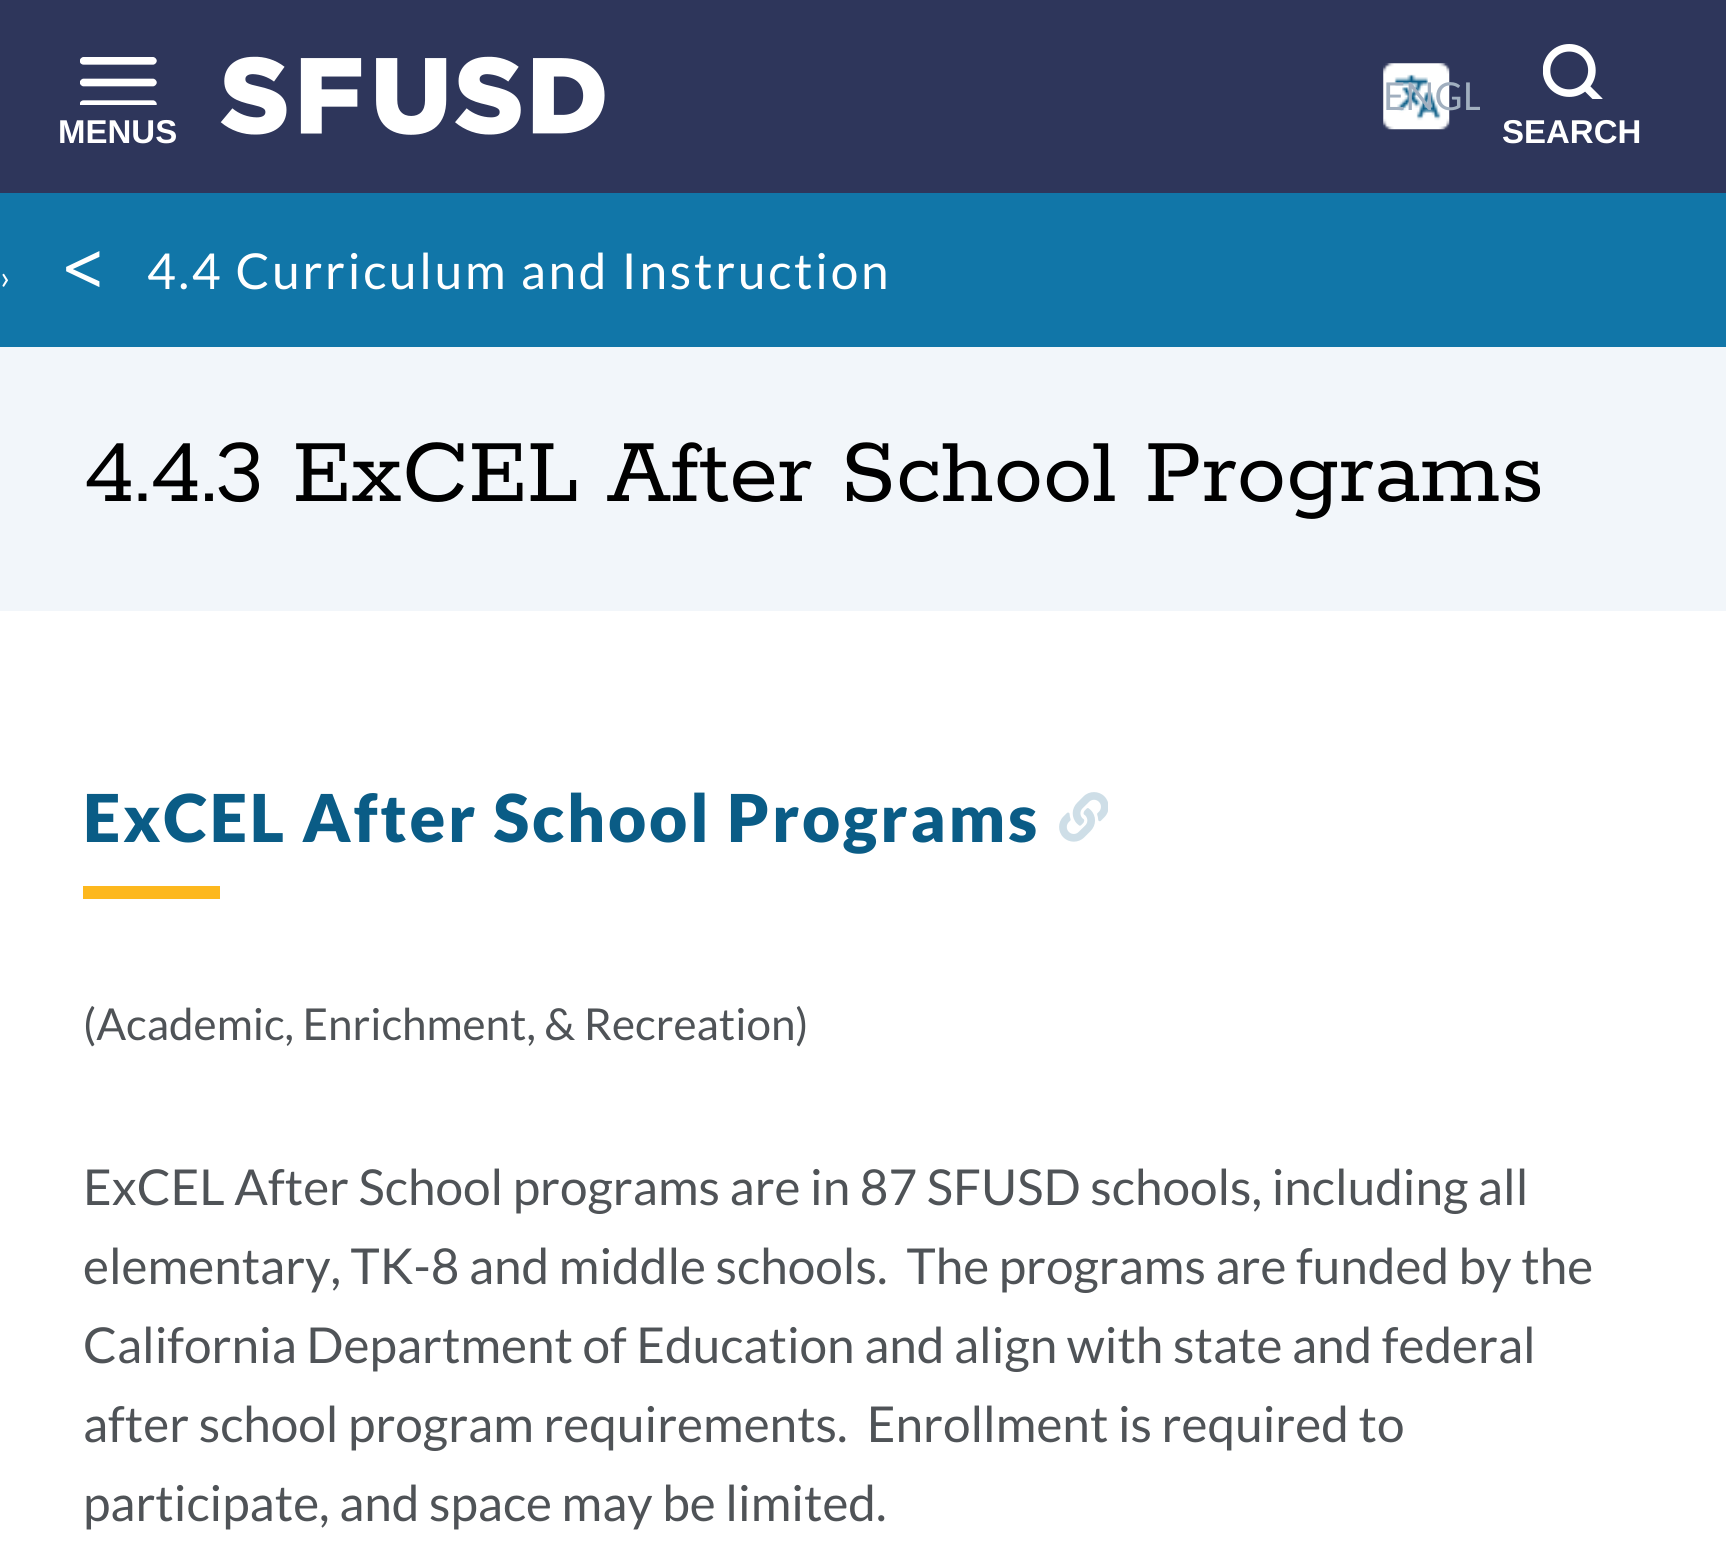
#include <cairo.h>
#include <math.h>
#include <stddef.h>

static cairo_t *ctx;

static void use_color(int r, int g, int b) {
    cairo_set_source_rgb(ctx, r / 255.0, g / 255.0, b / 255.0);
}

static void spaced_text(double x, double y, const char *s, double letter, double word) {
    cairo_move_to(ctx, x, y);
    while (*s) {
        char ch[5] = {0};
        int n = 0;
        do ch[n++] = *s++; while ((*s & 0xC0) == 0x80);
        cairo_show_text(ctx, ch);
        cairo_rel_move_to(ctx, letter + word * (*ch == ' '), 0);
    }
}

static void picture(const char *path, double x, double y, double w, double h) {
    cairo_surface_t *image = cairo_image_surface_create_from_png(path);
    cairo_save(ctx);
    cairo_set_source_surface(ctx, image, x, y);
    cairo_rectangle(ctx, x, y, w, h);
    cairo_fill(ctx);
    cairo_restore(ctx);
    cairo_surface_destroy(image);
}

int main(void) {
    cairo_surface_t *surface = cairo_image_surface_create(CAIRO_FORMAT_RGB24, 1726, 1541);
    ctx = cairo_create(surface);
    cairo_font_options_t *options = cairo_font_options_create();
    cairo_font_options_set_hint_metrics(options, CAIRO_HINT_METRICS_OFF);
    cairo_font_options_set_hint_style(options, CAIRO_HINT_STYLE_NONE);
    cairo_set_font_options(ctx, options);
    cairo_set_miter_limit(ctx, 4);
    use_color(255, 255, 255);
    cairo_paint(ctx);
    use_color(46, 54, 91);
    cairo_rectangle(ctx, 0, 0, 1726, 193);
    cairo_fill(ctx);
    picture("img1.png", 220, 56, 385, 79);
    picture("img2.png", 1383, 63, 67, 67);
    cairo_save(ctx);
    cairo_rectangle(ctx, 1383, 55, 97, 83);
    cairo_clip(ctx);
    cairo_select_font_face(ctx, "Lato", CAIRO_FONT_SLANT_NORMAL, CAIRO_FONT_WEIGHT_NORMAL);
    cairo_set_font_size(ctx, 38.5);
    use_color(161, 175, 191);
    cairo_move_to(ctx, 1383, 110);
    cairo_show_text(ctx, "ENGL");
    cairo_restore(ctx);
    picture("img3.png", 80, 57, 77, 48);
    cairo_select_font_face(ctx, "Liberation Sans", CAIRO_FONT_SLANT_NORMAL, CAIRO_FONT_WEIGHT_BOLD);
    cairo_set_font_size(ctx, 33);
    use_color(255, 255, 255);
    cairo_move_to(ctx, 58, 143);
    cairo_show_text(ctx, "MENUS");
    picture("img4.png", 1543, 44, 60, 55);
    cairo_move_to(ctx, 1502, 143);
    cairo_show_text(ctx, "SEARCH");
    use_color(242, 246, 250);
    cairo_rectangle(ctx, 0, 347, 1726, 264);
    cairo_fill(ctx);
    use_color(17, 118, 168);
    cairo_rectangle(ctx, 0, 193, 1726, 154);
    cairo_fill(ctx);
    cairo_select_font_face(ctx, "Lato", CAIRO_FONT_SLANT_NORMAL, CAIRO_FONT_WEIGHT_NORMAL);
    use_color(255, 255, 255);
    spaced_text(0, 289, "›", 2.75, 0);
    cairo_select_font_face(ctx, "Rokkitt", CAIRO_FONT_SLANT_NORMAL, CAIRO_FONT_WEIGHT_NORMAL);
    cairo_set_font_size(ctx, 94);
    spaced_text(62, 297, "<", -10, 0);
    cairo_select_font_face(ctx, "Lato", CAIRO_FONT_SLANT_NORMAL, CAIRO_FONT_WEIGHT_NORMAL);
    cairo_set_font_size(ctx, 49.5);
    spaced_text(147, 289, "4.4 Curriculum and Instruction", 2.75, 0);
    cairo_select_font_face(ctx, "Rokkitt", CAIRO_FONT_SLANT_NORMAL, CAIRO_FONT_WEIGHT_NORMAL);
    cairo_set_font_size(ctx, 99);
    use_color(0, 0, 0);
    cairo_move_to(ctx, 83, 501);
    cairo_show_text(ctx, "4.4.3 ExCEL After School Programs");
    cairo_select_font_face(ctx, "Lato Black", CAIRO_FONT_SLANT_NORMAL, CAIRO_FONT_WEIGHT_NORMAL);
    cairo_set_font_size(ctx, 66);
    use_color(10, 92, 134);
    spaced_text(83, 842, "ExCEL After School Programs", 2.75, 0);
    picture("img5.png", 1059, 792, 49, 50);
    use_color(253, 184, 30);
    cairo_rectangle(ctx, 83, 886, 137, 13);
    cairo_fill(ctx);
    cairo_select_font_face(ctx, "Lato", CAIRO_FONT_SLANT_NORMAL, CAIRO_FONT_WEIGHT_NORMAL);
    cairo_set_font_size(ctx, 44);
    use_color(79, 83, 87);
    cairo_move_to(ctx, 83, 1040);
    cairo_show_text(ctx, "(Academic, Enrichment, & Recreation)");
    cairo_set_font_size(ctx, 49.5);
    cairo_move_to(ctx, 83, 1205);
    cairo_show_text(ctx, "ExCEL After School programs are in 87 SFUSD schools, including all");
    cairo_move_to(ctx, 83, 1284);
    cairo_show_text(ctx, "elementary, TK-8 and middle schools.  The programs are funded by the");
    cairo_move_to(ctx, 83, 1363);
    cairo_show_text(ctx, "California Department of Education and align with state and federal");
    cairo_move_to(ctx, 83, 1442);
    cairo_show_text(ctx, "after school program requirements.  Enrollment is required to");
    cairo_move_to(ctx, 83, 1521);
    cairo_show_text(ctx, "participate, and space may be limited.");
    cairo_surface_write_to_png(surface, "result.png");
    cairo_font_options_destroy(options);
    cairo_destroy(ctx);
    cairo_surface_destroy(surface);
    return 0;
}
